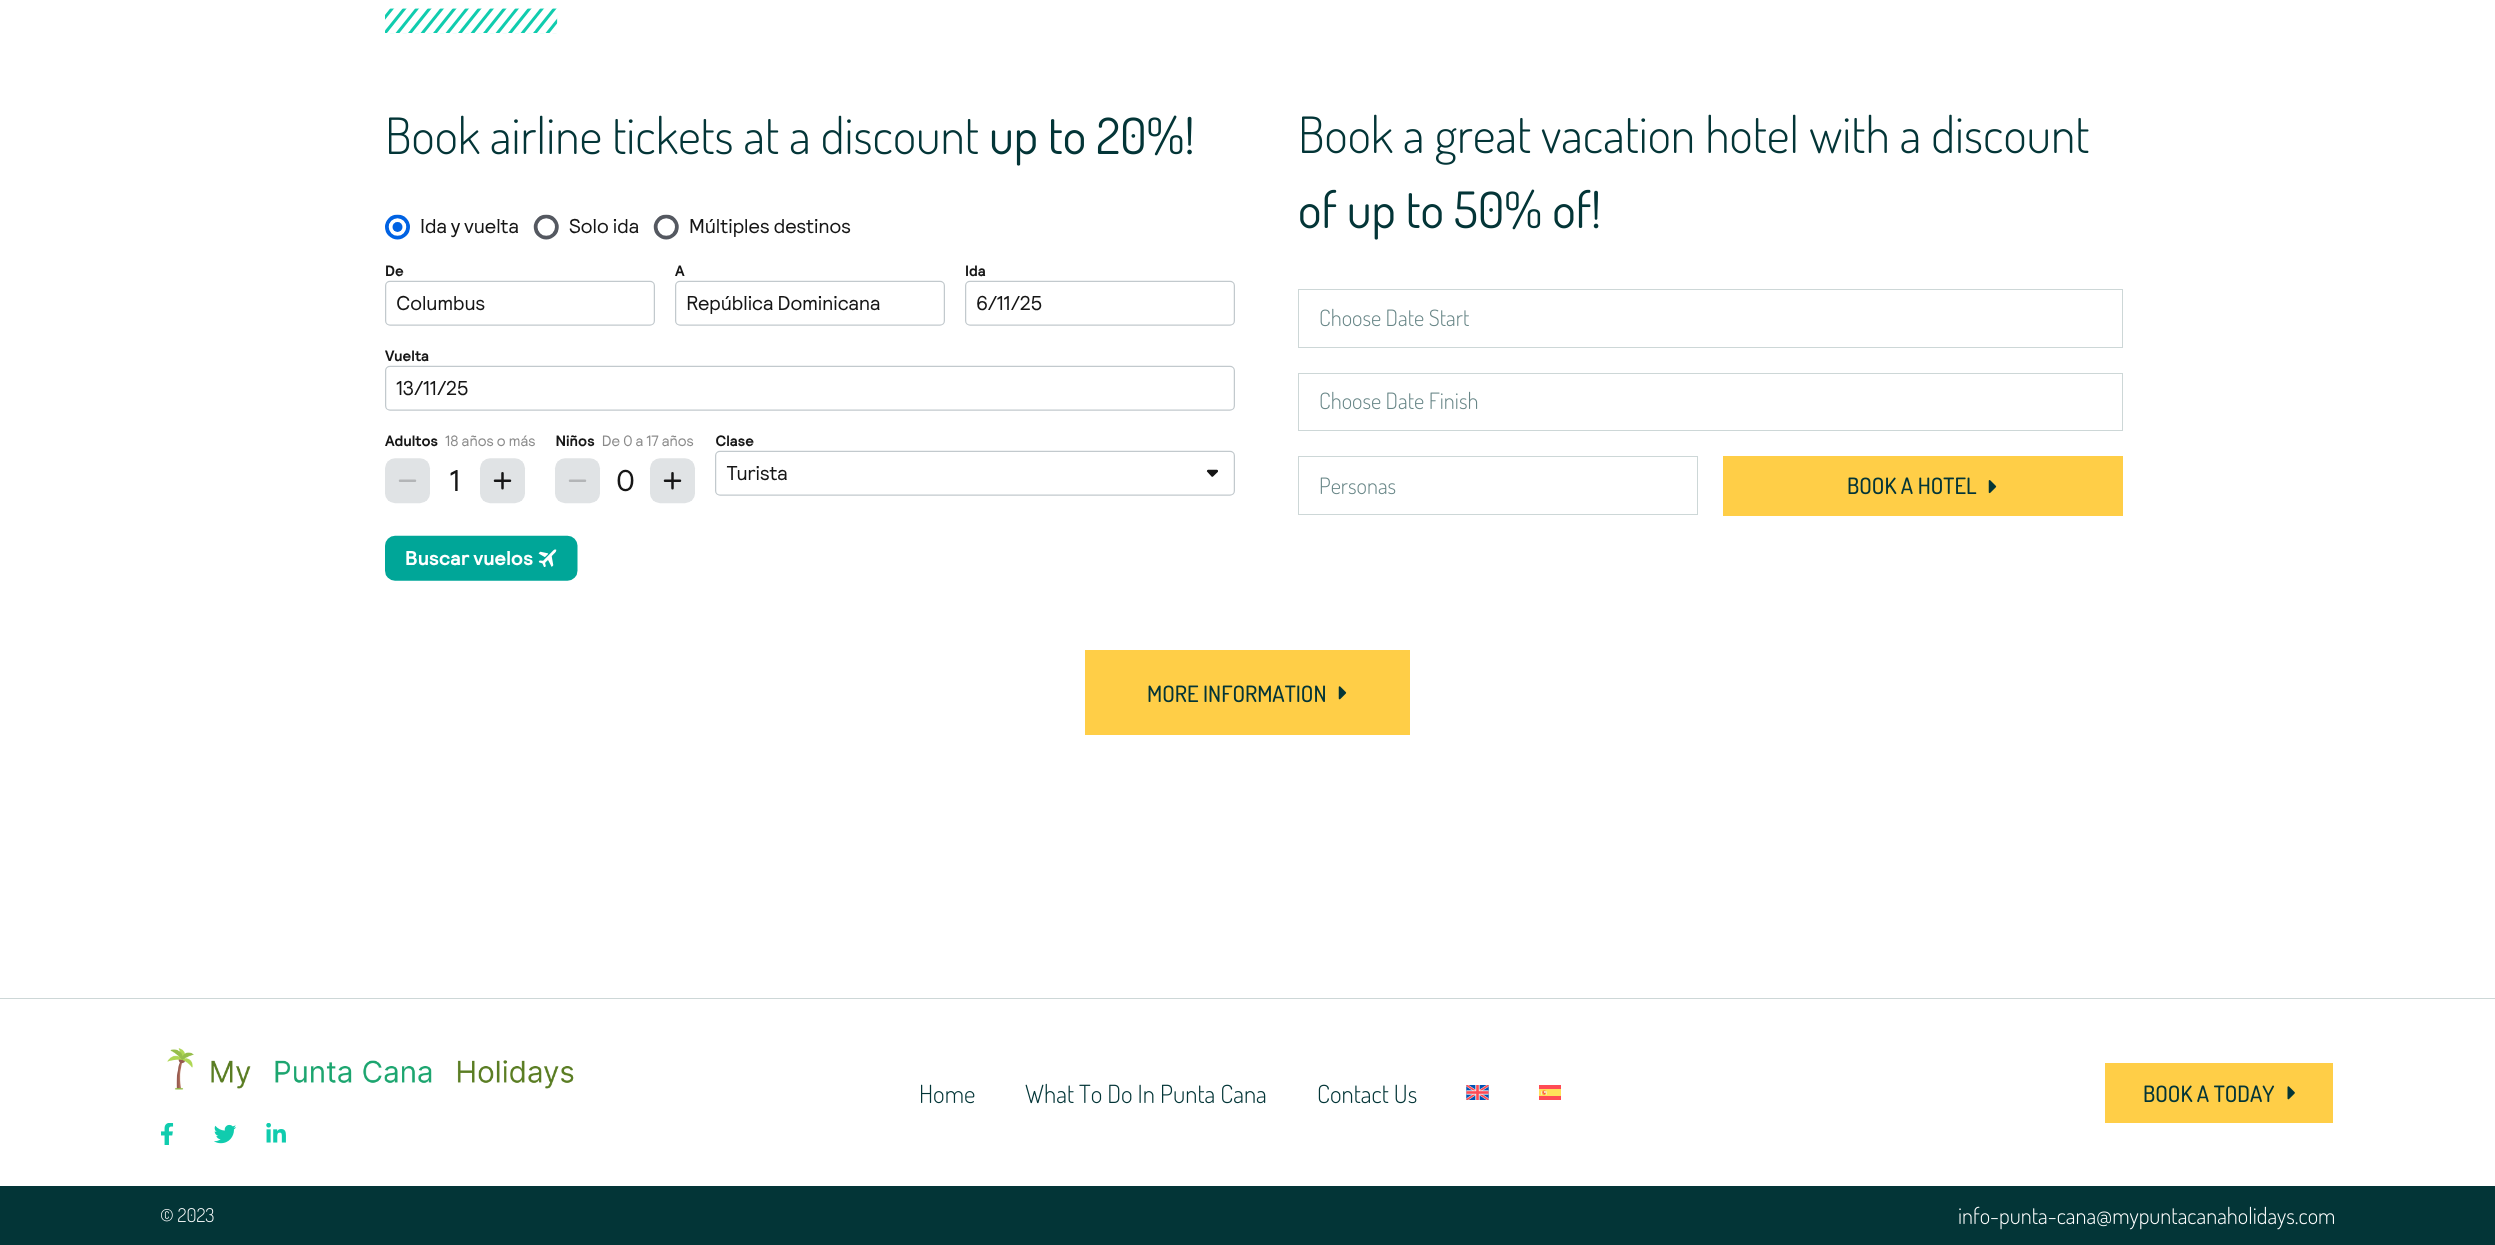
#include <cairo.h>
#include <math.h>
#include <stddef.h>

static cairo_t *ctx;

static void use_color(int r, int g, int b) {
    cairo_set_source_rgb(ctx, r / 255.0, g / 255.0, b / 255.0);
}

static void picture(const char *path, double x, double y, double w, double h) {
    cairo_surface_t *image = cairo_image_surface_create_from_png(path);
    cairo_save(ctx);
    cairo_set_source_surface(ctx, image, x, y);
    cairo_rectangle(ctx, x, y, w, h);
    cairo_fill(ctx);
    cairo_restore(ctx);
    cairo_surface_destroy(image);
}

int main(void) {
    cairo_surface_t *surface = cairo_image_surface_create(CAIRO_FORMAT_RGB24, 2495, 1245);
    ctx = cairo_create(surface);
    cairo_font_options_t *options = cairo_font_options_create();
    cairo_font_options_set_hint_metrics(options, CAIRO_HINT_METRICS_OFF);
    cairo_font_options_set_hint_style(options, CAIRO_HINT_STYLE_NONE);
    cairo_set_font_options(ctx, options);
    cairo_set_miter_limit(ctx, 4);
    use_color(255, 255, 255);
    cairo_paint(ctx);
    picture("img1.png", 385, 8, 173, 26);
    cairo_select_font_face(ctx, "Dosis Light", CAIRO_FONT_SLANT_NORMAL, CAIRO_FONT_WEIGHT_NORMAL);
    cairo_set_font_size(ctx, 50);
    use_color(3, 53, 55);
    cairo_move_to(ctx, 385, 154);
    cairo_show_text(ctx, "Book airline tickets at a discount");
    cairo_select_font_face(ctx, "Dosis", CAIRO_FONT_SLANT_NORMAL, CAIRO_FONT_WEIGHT_NORMAL);
    cairo_move_to(ctx, 989, 154);
    cairo_show_text(ctx, "up to 20%!");
    picture("img2.png", 385, 214, 850, 367);
    cairo_select_font_face(ctx, "Dosis Light", CAIRO_FONT_SLANT_NORMAL, CAIRO_FONT_WEIGHT_NORMAL);
    cairo_move_to(ctx, 1298, 153);
    cairo_show_text(ctx, "Book a great vacation hotel with a discount");
    cairo_select_font_face(ctx, "Dosis", CAIRO_FONT_SLANT_NORMAL, CAIRO_FONT_WEIGHT_NORMAL);
    cairo_move_to(ctx, 1298, 228);
    cairo_show_text(ctx, "of up to 50% of!");
    cairo_rectangle(ctx, 1298.5, 289.5, 824, 58);
    use_color(205, 215, 215);
    cairo_set_line_width(ctx, 1);
    cairo_stroke(ctx);
    cairo_select_font_face(ctx, "Dosis Light", CAIRO_FONT_SLANT_NORMAL, CAIRO_FONT_WEIGHT_NORMAL);
    cairo_set_font_size(ctx, 22.5);
    use_color(104, 134, 135);
    cairo_move_to(ctx, 1319, 326);
    cairo_show_text(ctx, "Choose Date Start");
    cairo_rectangle(ctx, 1298.5, 373.5, 824, 57);
    use_color(205, 215, 215);
    cairo_stroke(ctx);
    use_color(104, 134, 135);
    cairo_move_to(ctx, 1319, 409);
    cairo_show_text(ctx, "Choose Date Finish");
    cairo_rectangle(ctx, 1298.5, 456.5, 399, 58);
    use_color(205, 215, 215);
    cairo_stroke(ctx);
    use_color(104, 134, 135);
    cairo_move_to(ctx, 1319, 494);
    cairo_show_text(ctx, "Personas");
    use_color(255, 206, 71);
    cairo_rectangle(ctx, 1723, 456, 400, 60);
    cairo_fill(ctx);
    cairo_select_font_face(ctx, "Dosis Medium", CAIRO_FONT_SLANT_NORMAL, CAIRO_FONT_WEIGHT_NORMAL);
    use_color(3, 53, 55);
    cairo_move_to(ctx, 1847, 494);
    cairo_show_text(ctx, "BOOK A HOTEL");
    picture("img3.png", 1988, 480, 9, 14);
    use_color(255, 206, 71);
    cairo_rectangle(ctx, 1085, 650, 325, 85);
    cairo_fill(ctx);
    use_color(3, 53, 55);
    cairo_move_to(ctx, 1147, 702);
    cairo_show_text(ctx, "MORE INFORMATION");
    picture("img4.png", 1338, 686, 9, 14);
    use_color(205, 215, 215);
    cairo_rectangle(ctx, 0, 998, 2495, 1);
    cairo_fill(ctx);
    picture("img5.png", 167, 1048, 407, 42);
    picture("img6.png", 161, 1123, 13, 22);
    picture("img7.png", 214, 1124, 23, 20);
    picture("img8.png", 266, 1123, 20, 20);
    cairo_select_font_face(ctx, "Dosis Light", CAIRO_FONT_SLANT_NORMAL, CAIRO_FONT_WEIGHT_NORMAL);
    cairo_set_font_size(ctx, 25);
    use_color(3, 53, 55);
    cairo_move_to(ctx, 919, 1103);
    cairo_show_text(ctx, "Home");
    cairo_move_to(ctx, 1025, 1103);
    cairo_show_text(ctx, "What To Do In Punta Cana");
    cairo_move_to(ctx, 1317, 1103);
    cairo_show_text(ctx, "Contact Us");
    picture("img9.png", 1466, 1085, 23, 15);
    picture("img10.png", 1539, 1085, 22, 15);
    use_color(255, 206, 71);
    cairo_rectangle(ctx, 2105, 1063, 228, 60);
    cairo_fill(ctx);
    cairo_select_font_face(ctx, "Dosis Medium", CAIRO_FONT_SLANT_NORMAL, CAIRO_FONT_WEIGHT_NORMAL);
    cairo_set_font_size(ctx, 22.5);
    use_color(3, 53, 55);
    cairo_move_to(ctx, 2143, 1102);
    cairo_show_text(ctx, "BOOK A TODAY");
    picture("img11.png", 2287, 1086, 8, 14);
    cairo_rectangle(ctx, 0, 1186, 2495, 59);
    cairo_fill(ctx);
    cairo_select_font_face(ctx, "Dosis Light", CAIRO_FONT_SLANT_NORMAL, CAIRO_FONT_WEIGHT_NORMAL);
    cairo_set_font_size(ctx, 19);
    use_color(255, 255, 255);
    cairo_move_to(ctx, 160, 1222);
    cairo_show_text(ctx, "© 2023");
    cairo_set_font_size(ctx, 22.5);
    cairo_move_to(ctx, 1958, 1224);
    cairo_show_text(ctx, "info-punta-cana@mypuntacanaholidays.com");
    cairo_surface_write_to_png(surface, "result.png");
    cairo_font_options_destroy(options);
    cairo_destroy(ctx);
    cairo_surface_destroy(surface);
    return 0;
}
